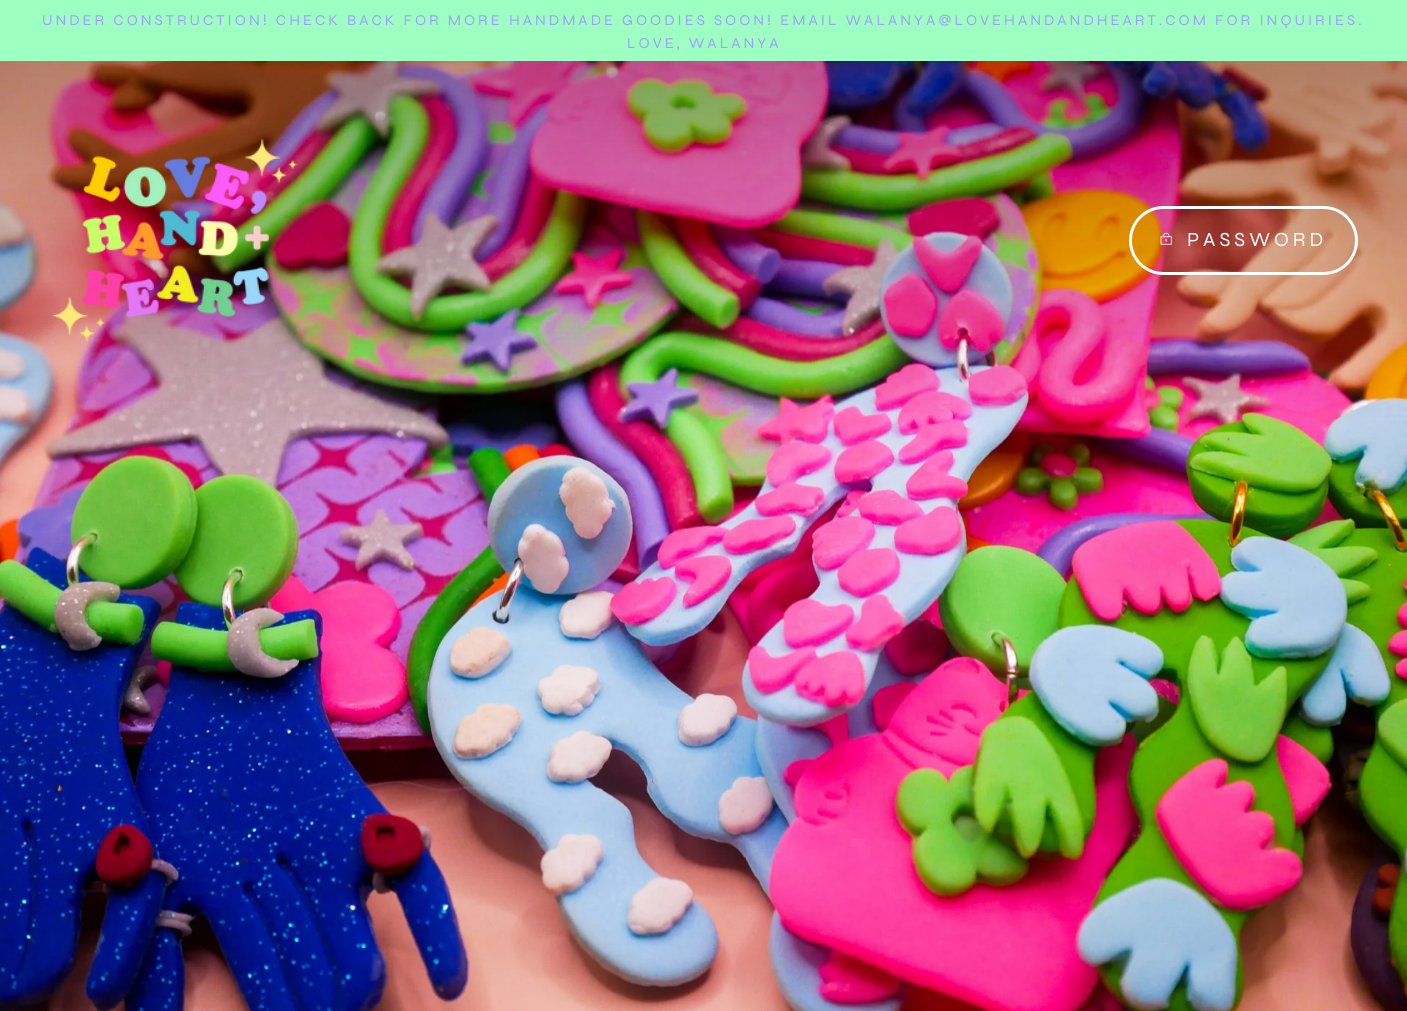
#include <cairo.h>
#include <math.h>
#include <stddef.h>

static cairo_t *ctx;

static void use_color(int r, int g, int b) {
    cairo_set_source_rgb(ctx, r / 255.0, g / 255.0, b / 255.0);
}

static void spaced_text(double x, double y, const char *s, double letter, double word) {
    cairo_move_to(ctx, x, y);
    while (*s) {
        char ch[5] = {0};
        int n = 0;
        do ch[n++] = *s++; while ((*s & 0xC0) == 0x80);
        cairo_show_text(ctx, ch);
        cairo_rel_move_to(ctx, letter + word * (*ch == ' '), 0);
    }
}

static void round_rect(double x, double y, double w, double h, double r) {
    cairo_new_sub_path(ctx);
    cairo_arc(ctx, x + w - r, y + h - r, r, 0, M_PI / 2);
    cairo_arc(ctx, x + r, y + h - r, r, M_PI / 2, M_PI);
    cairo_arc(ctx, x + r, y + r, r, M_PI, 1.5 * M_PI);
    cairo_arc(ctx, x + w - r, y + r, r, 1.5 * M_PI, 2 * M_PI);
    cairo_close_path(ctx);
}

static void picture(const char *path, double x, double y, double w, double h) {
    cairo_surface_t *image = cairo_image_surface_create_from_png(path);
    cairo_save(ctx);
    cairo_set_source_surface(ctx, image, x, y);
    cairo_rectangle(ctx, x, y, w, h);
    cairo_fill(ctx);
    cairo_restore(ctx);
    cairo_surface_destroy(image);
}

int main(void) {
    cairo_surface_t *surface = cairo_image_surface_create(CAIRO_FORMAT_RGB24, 1407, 1011);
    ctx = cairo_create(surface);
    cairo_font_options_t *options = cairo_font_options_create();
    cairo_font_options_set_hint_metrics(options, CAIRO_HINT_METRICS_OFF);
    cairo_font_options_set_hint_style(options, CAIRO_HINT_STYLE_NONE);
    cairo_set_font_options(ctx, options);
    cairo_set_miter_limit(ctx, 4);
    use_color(255, 255, 255);
    cairo_paint(ctx);
    use_color(158, 255, 194);
    cairo_rectangle(ctx, 0, 0, 1407, 61);
    cairo_fill(ctx);
    cairo_select_font_face(ctx, "Syne", CAIRO_FONT_SLANT_NORMAL, CAIRO_FONT_WEIGHT_NORMAL);
    cairo_set_font_size(ctx, 15);
    use_color(158, 158, 255);
    spaced_text(42, 25, "UNDER CONSTRUCTION! CHECK BACK FOR MORE HANDMADE GOODIES SOON! EMAIL WALANYA@LOVEHANDANDHEART.COM FOR INQUIRIES.", 3, 0);
    spaced_text(627, 48, "LOVE, WALANYA", 3, 0);
    picture("img3.png", 0, 61, 1407, 950);
    picture("img1.png", 52, 138, 246, 204);
    round_rect(1130.5, 207.5, 226, 66, 33);
    use_color(255, 255, 255);
    cairo_set_line_width(ctx, 3);
    cairo_stroke(ctx);
    picture("img2.png", 1160, 232, 12, 13);
    cairo_set_font_size(ctx, 20);
    spaced_text(1187, 246, "PASSWORD", 4, 0);
    cairo_surface_write_to_png(surface, "result.png");
    cairo_font_options_destroy(options);
    cairo_destroy(ctx);
    cairo_surface_destroy(surface);
    return 0;
}
